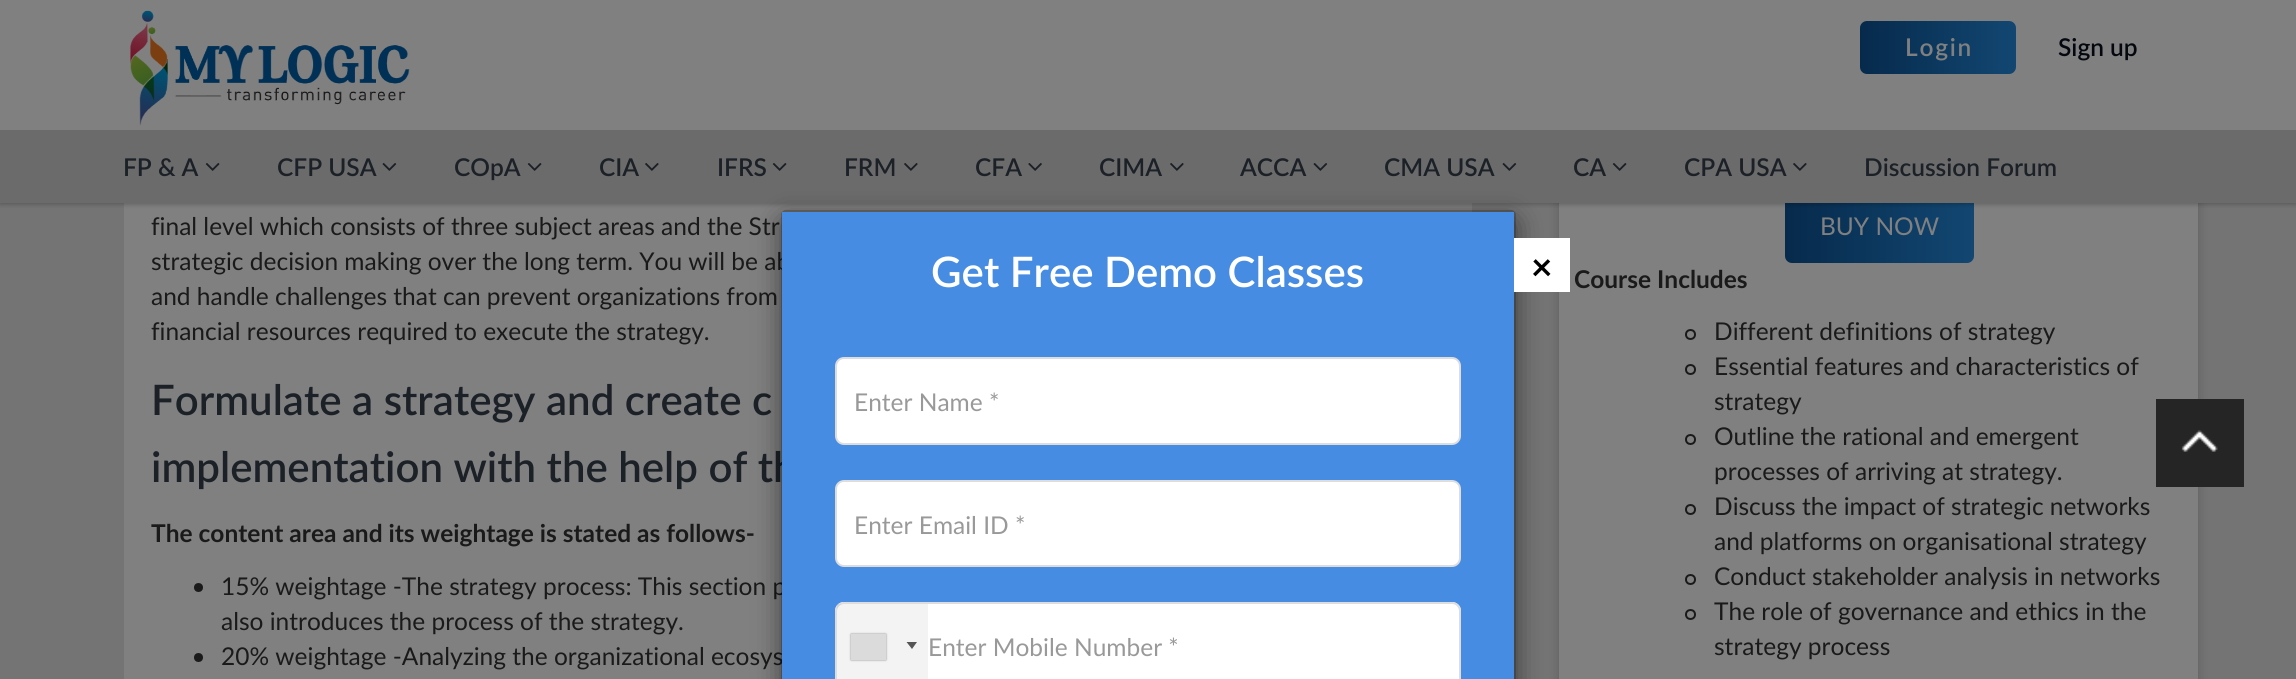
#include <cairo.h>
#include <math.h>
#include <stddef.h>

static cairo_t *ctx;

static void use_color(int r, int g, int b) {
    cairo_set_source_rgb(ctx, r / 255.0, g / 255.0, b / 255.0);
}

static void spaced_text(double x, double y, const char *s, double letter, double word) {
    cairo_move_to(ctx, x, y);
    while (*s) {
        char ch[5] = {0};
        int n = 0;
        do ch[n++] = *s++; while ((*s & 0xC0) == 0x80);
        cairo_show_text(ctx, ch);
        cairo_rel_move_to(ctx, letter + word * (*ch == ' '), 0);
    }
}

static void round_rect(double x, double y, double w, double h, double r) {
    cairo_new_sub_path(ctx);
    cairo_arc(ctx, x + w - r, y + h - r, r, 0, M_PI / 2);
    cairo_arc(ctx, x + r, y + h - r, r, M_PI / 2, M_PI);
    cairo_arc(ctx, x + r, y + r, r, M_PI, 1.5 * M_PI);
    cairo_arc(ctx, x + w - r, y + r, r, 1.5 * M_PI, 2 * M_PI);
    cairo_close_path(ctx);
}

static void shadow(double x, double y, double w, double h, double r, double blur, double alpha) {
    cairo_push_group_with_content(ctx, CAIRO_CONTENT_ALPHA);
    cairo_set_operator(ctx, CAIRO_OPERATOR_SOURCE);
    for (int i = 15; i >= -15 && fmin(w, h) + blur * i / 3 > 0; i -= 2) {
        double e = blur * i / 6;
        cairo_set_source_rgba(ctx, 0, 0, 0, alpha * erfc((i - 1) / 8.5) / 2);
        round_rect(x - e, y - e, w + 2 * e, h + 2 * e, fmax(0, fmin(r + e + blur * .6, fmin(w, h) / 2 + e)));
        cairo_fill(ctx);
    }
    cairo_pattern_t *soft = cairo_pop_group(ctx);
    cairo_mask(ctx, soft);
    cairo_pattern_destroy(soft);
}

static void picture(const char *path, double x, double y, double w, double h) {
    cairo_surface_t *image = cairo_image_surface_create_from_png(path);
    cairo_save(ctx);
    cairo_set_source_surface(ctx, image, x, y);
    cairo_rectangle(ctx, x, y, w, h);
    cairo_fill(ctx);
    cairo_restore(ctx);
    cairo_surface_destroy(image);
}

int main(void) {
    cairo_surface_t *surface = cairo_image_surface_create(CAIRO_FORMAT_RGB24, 2296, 679);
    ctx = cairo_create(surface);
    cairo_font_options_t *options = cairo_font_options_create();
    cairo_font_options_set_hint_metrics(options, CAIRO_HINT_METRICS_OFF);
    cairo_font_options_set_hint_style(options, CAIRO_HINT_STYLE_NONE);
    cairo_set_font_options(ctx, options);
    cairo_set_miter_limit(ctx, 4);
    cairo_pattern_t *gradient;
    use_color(116, 116, 116);
    cairo_paint(ctx);
    use_color(128, 128, 128);
    cairo_rectangle(ctx, 124, 203, 1348, 476);
    cairo_fill(ctx);
    use_color(0, 0, 0);
    shadow(1559, -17, 639, 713, 0, 5.5, 0.2);
    use_color(128, 128, 128);
    cairo_rectangle(ctx, 1559, 203, 639, 476);
    cairo_fill(ctx);
    gradient = cairo_pattern_create_linear(1974, 228, 1785, 228);
    cairo_pattern_add_color_stop_rgba(gradient, 0, 0.071, 0.278, 0.447, 1);
    cairo_pattern_add_color_stop_rgba(gradient, 1, 0.024, 0.165, 0.298, 1);
    cairo_set_source(ctx, gradient);
    cairo_pattern_destroy(gradient);
    round_rect(1785, 193, 189, 70, 7);
    cairo_fill(ctx);
    use_color(0, 0, 0);
    shadow(0, 2, 2296, 203, 0, 2, 0.2);
    use_color(107, 107, 107);
    cairo_rectangle(ctx, 0, 130, 2296, 73);
    cairo_fill(ctx);
    use_color(128, 128, 128);
    cairo_rectangle(ctx, 0, 0, 2296, 130);
    cairo_fill(ctx);
    picture("img1.png", 130, 10, 280, 116);
    gradient = cairo_pattern_create_linear(2016, 47, 1860, 47);
    cairo_pattern_add_color_stop_rgba(gradient, 0, 0.071, 0.278, 0.447, 1);
    cairo_pattern_add_color_stop_rgba(gradient, 1, 0.024, 0.165, 0.298, 1);
    cairo_set_source(ctx, gradient);
    cairo_pattern_destroy(gradient);
    round_rect(1860, 21, 156, 53, 7);
    cairo_fill(ctx);
    cairo_select_font_face(ctx, "Lato SemiBold", CAIRO_FONT_SLANT_NORMAL, CAIRO_FONT_WEIGHT_NORMAL);
    cairo_set_font_size(ctx, 24.5);
    use_color(128, 128, 128);
    spaced_text(1905, 56, "Login", 1.75, 0);
    use_color(3, 8, 15);
    cairo_move_to(ctx, 2058, 56);
    cairo_show_text(ctx, "Sign up");
    use_color(27, 33, 39);
    cairo_move_to(ctx, 123, 176);
    cairo_show_text(ctx, "FP & A");
    picture("img2.png", 205, 163, 15, 8);
    cairo_move_to(ctx, 277, 176);
    cairo_show_text(ctx, "CFP USA");
    picture("img3.png", 382, 163, 15, 8);
    cairo_move_to(ctx, 454, 176);
    cairo_show_text(ctx, "COpA");
    picture("img2.png", 527, 163, 15, 8);
    cairo_move_to(ctx, 599, 176);
    cairo_show_text(ctx, "CIA");
    picture("img4.png", 645, 163, 14, 8);
    cairo_move_to(ctx, 717, 176);
    cairo_show_text(ctx, "IFRS");
    picture("img2.png", 772, 163, 15, 8);
    cairo_move_to(ctx, 844, 176);
    cairo_show_text(ctx, "FRM");
    picture("img4.png", 904, 163, 14, 8);
    cairo_move_to(ctx, 975, 176);
    cairo_show_text(ctx, "CFA");
    picture("img5.png", 1028, 163, 14, 8);
    cairo_move_to(ctx, 1099, 176);
    cairo_show_text(ctx, "CIMA");
    picture("img4.png", 1170, 163, 14, 8);
    cairo_move_to(ctx, 1240, 176);
    cairo_show_text(ctx, "ACCA");
    picture("img3.png", 1313, 163, 15, 8);
    cairo_move_to(ctx, 1384, 176);
    cairo_show_text(ctx, "CMA USA");
    picture("img3.png", 1502, 163, 15, 8);
    cairo_move_to(ctx, 1573, 176);
    cairo_show_text(ctx, "CA");
    picture("img2.png", 1612, 163, 15, 8);
    cairo_move_to(ctx, 1684, 176);
    cairo_show_text(ctx, "CPA USA");
    picture("img4.png", 1793, 163, 14, 8);
    cairo_move_to(ctx, 1864, 176);
    cairo_show_text(ctx, "Discussion Forum");
    cairo_select_font_face(ctx, "Lato", CAIRO_FONT_SLANT_NORMAL, CAIRO_FONT_WEIGHT_NORMAL);
    use_color(26, 26, 26);
    cairo_move_to(ctx, 151, 235);
    cairo_show_text(ctx, "final level which consists of three subject areas and the Str");
    cairo_move_to(ctx, 151, 270);
    cairo_show_text(ctx, "strategic decision making over the long term. You will be ab");
    cairo_move_to(ctx, 151, 305);
    cairo_show_text(ctx, "and handle challenges that can prevent organizations from");
    cairo_move_to(ctx, 151, 340);
    cairo_show_text(ctx, "financial resources required to execute the strategy.");
    cairo_select_font_face(ctx, "Lato SemiBold", CAIRO_FONT_SLANT_NORMAL, CAIRO_FONT_WEIGHT_NORMAL);
    cairo_set_font_size(ctx, 42);
    use_color(27, 33, 39);
    cairo_move_to(ctx, 151, 415);
    cairo_show_text(ctx, "Formulate a strategy and create c");
    cairo_move_to(ctx, 151, 482);
    cairo_show_text(ctx, "implementation with the help of th");
    cairo_select_font_face(ctx, "Lato", CAIRO_FONT_SLANT_NORMAL, CAIRO_FONT_WEIGHT_BOLD);
    cairo_set_font_size(ctx, 24.5);
    use_color(26, 26, 26);
    cairo_move_to(ctx, 151, 542);
    cairo_show_text(ctx, "The content area and its weightage is stated as follows-");
    cairo_new_path(ctx);
    cairo_arc(ctx, 198.5, 587.5, 4.5, 0, 2 * M_PI);
    cairo_fill(ctx);
    cairo_select_font_face(ctx, "Lato", CAIRO_FONT_SLANT_NORMAL, CAIRO_FONT_WEIGHT_NORMAL);
    cairo_move_to(ctx, 221, 595);
    cairo_show_text(ctx, "15% weightage -The strategy process: This section p");
    cairo_move_to(ctx, 221, 630);
    cairo_show_text(ctx, "also introduces the process of the strategy.");
    cairo_new_path(ctx);
    cairo_arc(ctx, 198.5, 657.5, 4.5, 0, 2 * M_PI);
    cairo_fill(ctx);
    cairo_move_to(ctx, 221, 665);
    cairo_show_text(ctx, "20% weightage -Analyzing the organizational ecosys");
    use_color(128, 128, 128);
    cairo_move_to(ctx, 1820, 235);
    cairo_show_text(ctx, "BUY NOW");
    cairo_select_font_face(ctx, "Lato", CAIRO_FONT_SLANT_NORMAL, CAIRO_FONT_WEIGHT_BOLD);
    use_color(26, 26, 26);
    cairo_move_to(ctx, 1574, 288);
    cairo_show_text(ctx, "Course Includes");
    cairo_new_path(ctx);
    cairo_arc(ctx, 1690.5, 334.5, 4.5, 0, 2 * M_PI);
    cairo_stroke(ctx);
    cairo_select_font_face(ctx, "Lato", CAIRO_FONT_SLANT_NORMAL, CAIRO_FONT_WEIGHT_NORMAL);
    cairo_move_to(ctx, 1714, 340);
    cairo_show_text(ctx, "Different definitions of strategy");
    cairo_new_path(ctx);
    cairo_arc(ctx, 1690.5, 369.5, 4.5, 0, 2 * M_PI);
    cairo_stroke(ctx);
    cairo_move_to(ctx, 1714, 375);
    cairo_show_text(ctx, "Essential features and characteristics of");
    cairo_move_to(ctx, 1714, 410);
    cairo_show_text(ctx, "strategy");
    cairo_new_path(ctx);
    cairo_arc(ctx, 1690.5, 439.5, 4.5, 0, 2 * M_PI);
    cairo_stroke(ctx);
    cairo_move_to(ctx, 1714, 445);
    cairo_show_text(ctx, "Outline the rational and emergent");
    cairo_move_to(ctx, 1714, 480);
    cairo_show_text(ctx, "processes of arriving at strategy.");
    cairo_new_path(ctx);
    cairo_arc(ctx, 1690.5, 509.5, 4.5, 0, 2 * M_PI);
    cairo_stroke(ctx);
    cairo_move_to(ctx, 1714, 515);
    cairo_show_text(ctx, "Discuss the impact of strategic networks");
    cairo_move_to(ctx, 1714, 550);
    cairo_show_text(ctx, "and platforms on organisational strategy");
    cairo_new_path(ctx);
    cairo_arc(ctx, 1690.5, 579.5, 4.5, 0, 2 * M_PI);
    cairo_stroke(ctx);
    cairo_move_to(ctx, 1714, 585);
    cairo_show_text(ctx, "Conduct stakeholder analysis in networks");
    cairo_new_path(ctx);
    cairo_arc(ctx, 1690.5, 614.5, 4.5, 0, 2 * M_PI);
    cairo_stroke(ctx);
    cairo_move_to(ctx, 1714, 620);
    cairo_show_text(ctx, "The role of governance and ethics in the");
    cairo_move_to(ctx, 1714, 655);
    cairo_show_text(ctx, "strategy process");
    use_color(37, 37, 37);
    cairo_rectangle(ctx, 2156, 399, 88, 88);
    cairo_fill(ctx);
    picture("img6.png", 2181, 430, 37, 22);
    use_color(0, 0, 0);
    shadow(781, 219, 735, 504, 5, 13, 0.5);
    round_rect(782, 211, 733, 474, 4);
    cairo_set_source_rgba(ctx, 0, 0, 0, 0.2);
    cairo_stroke(ctx);
    use_color(71, 140, 227);
    cairo_rectangle(ctx, 782, 212, 732, 467);
    cairo_fill(ctx);
    cairo_select_font_face(ctx, "Lato SemiBold", CAIRO_FONT_SLANT_NORMAL, CAIRO_FONT_WEIGHT_NORMAL);
    cairo_set_font_size(ctx, 42);
    use_color(255, 255, 255);
    cairo_move_to(ctx, 931, 287);
    cairo_show_text(ctx, "Get Free Demo Classes");
    round_rect(836, 358, 624, 86, 8);
    cairo_fill_preserve(ctx);
    use_color(221, 221, 221);
    cairo_stroke(ctx);
    cairo_select_font_face(ctx, "Lato", CAIRO_FONT_SLANT_NORMAL, CAIRO_FONT_WEIGHT_NORMAL);
    cairo_set_font_size(ctx, 24.5);
    use_color(153, 153, 153);
    cairo_move_to(ctx, 854, 411);
    cairo_show_text(ctx, "Enter Name *");
    use_color(255, 255, 255);
    round_rect(836, 481, 624, 85, 8);
    cairo_fill_preserve(ctx);
    use_color(221, 221, 221);
    cairo_stroke(ctx);
    use_color(153, 153, 153);
    cairo_move_to(ctx, 854, 534);
    cairo_show_text(ctx, "Enter Email ID *");
    use_color(255, 255, 255);
    cairo_new_path(ctx);
    cairo_move_to(ctx, 844, 602);
    cairo_line_to(ctx, 1452, 602);
    cairo_curve_to(ctx, 1457, 602, 1461, 606, 1461, 611);
    cairo_line_to(ctx, 1461, 679);
    cairo_line_to(ctx, 835, 679);
    cairo_line_to(ctx, 835, 611);
    cairo_curve_to(ctx, 835, 606, 839, 602, 844, 602);
    cairo_close_path(ctx);
    cairo_fill(ctx);
    round_rect(836, 603, 624, 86, 8);
    use_color(221, 221, 221);
    cairo_stroke(ctx);
    cairo_set_source_rgba(ctx, 0, 0, 0, 0.05);
    cairo_rectangle(ctx, 837, 604, 91, 75);
    cairo_fill(ctx);
    use_color(136, 136, 136);
    shadow(851, 634, 35, 26, 0, 1, 1);
    use_color(219, 219, 219);
    cairo_rectangle(ctx, 851, 634, 35, 26);
    cairo_fill(ctx);
    use_color(85, 85, 85);
    cairo_new_path(ctx);
    cairo_move_to(ctx, 906.5, 642);
    cairo_line_to(ctx, 917, 642);
    cairo_line_to(ctx, 912, 649);
    cairo_close_path(ctx);
    cairo_fill(ctx);
    use_color(153, 153, 153);
    cairo_move_to(ctx, 928, 656);
    cairo_show_text(ctx, "Enter Mobile Number *");
    use_color(255, 255, 255);
    cairo_rectangle(ctx, 1514, 238, 56, 54);
    cairo_fill(ctx);
    cairo_select_font_face(ctx, "Lato", CAIRO_FONT_SLANT_NORMAL, CAIRO_FONT_WEIGHT_BOLD);
    cairo_set_font_size(ctx, 37);
    use_color(0, 0, 0);
    cairo_move_to(ctx, 1531, 280);
    cairo_show_text(ctx, "×");
    cairo_surface_write_to_png(surface, "result.png");
    cairo_font_options_destroy(options);
    cairo_destroy(ctx);
    cairo_surface_destroy(surface);
    return 0;
}
